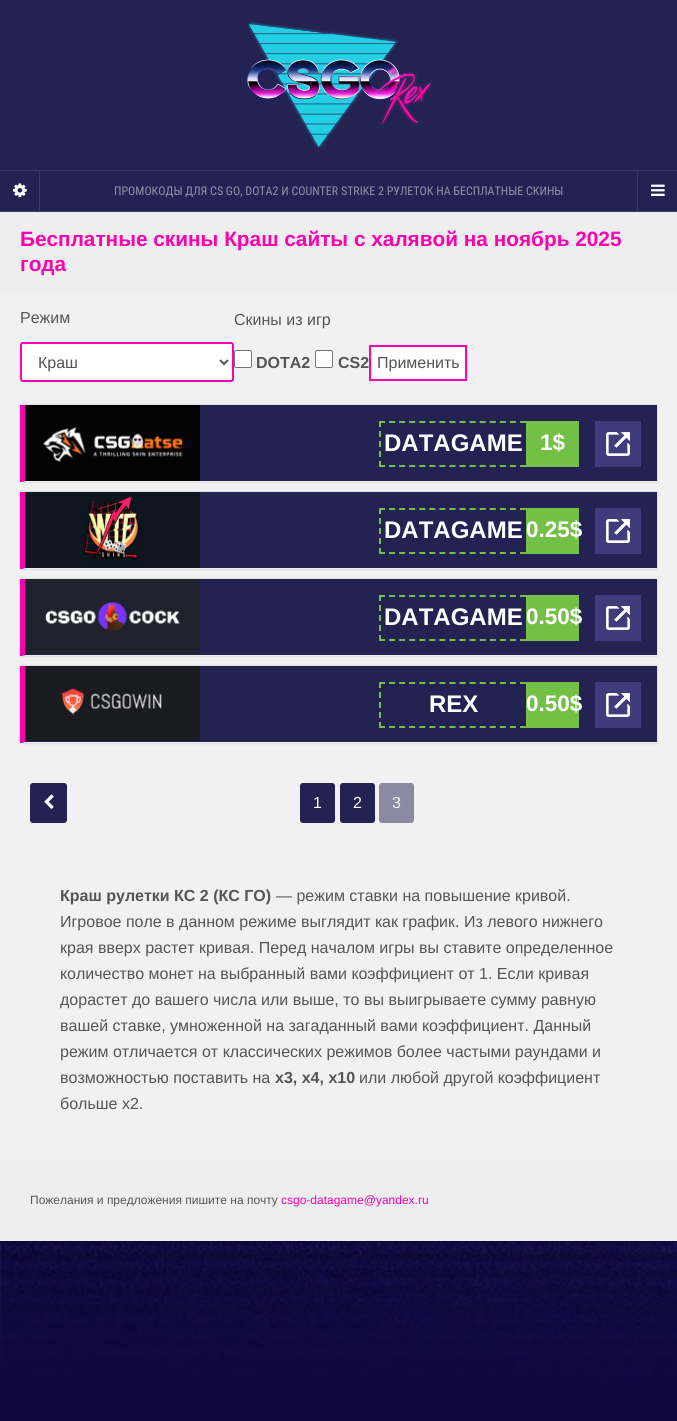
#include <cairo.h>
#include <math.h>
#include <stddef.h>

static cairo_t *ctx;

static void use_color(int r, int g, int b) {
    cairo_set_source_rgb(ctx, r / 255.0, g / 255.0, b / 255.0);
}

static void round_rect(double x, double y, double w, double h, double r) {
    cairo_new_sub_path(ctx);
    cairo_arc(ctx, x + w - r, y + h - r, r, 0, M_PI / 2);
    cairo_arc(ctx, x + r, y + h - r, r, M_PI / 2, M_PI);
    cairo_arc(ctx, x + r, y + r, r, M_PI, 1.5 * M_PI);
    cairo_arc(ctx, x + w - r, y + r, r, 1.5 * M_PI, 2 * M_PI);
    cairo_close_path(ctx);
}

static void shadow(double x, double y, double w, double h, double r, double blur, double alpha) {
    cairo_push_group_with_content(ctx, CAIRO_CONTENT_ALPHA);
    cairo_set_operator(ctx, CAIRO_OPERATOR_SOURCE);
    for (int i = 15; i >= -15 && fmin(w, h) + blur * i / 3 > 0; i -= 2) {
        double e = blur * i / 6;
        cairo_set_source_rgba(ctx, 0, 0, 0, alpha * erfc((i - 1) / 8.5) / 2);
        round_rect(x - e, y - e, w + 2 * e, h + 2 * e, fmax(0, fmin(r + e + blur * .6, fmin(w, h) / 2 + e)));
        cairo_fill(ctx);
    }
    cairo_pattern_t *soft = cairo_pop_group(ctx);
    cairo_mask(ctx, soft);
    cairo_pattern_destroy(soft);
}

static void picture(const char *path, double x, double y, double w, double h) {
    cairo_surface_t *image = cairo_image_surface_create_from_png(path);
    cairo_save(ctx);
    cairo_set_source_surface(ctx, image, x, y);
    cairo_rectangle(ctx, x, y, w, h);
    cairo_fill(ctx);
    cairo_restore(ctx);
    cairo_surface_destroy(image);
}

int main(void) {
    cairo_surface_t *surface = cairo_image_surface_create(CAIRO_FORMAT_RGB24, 677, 1421);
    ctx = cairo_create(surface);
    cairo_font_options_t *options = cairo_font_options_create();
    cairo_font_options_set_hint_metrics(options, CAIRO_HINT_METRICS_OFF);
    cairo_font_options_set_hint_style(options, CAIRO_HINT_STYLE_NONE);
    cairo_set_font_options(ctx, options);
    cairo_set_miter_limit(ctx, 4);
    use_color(255, 255, 255);
    cairo_paint(ctx);
    picture("img1.png", 0, 1241, 677, 180);
    use_color(36, 34, 83);
    cairo_rectangle(ctx, 0, 0, 677, 211);
    cairo_fill(ctx);
    use_color(58, 56, 100);
    cairo_rectangle(ctx, 39, 171, 1, 40);
    cairo_fill(ctx);
    picture("img2.png", 13, 183, 14, 15);
    cairo_rectangle(ctx, 0, 211, 677, 1);
    cairo_fill(ctx);
    cairo_rectangle(ctx, 0, 170, 677, 1);
    cairo_fill(ctx);
    picture("img3.png", 245, 22, 187, 127);
    cairo_select_font_face(ctx, "Roboto Condensed", CAIRO_FONT_SLANT_NORMAL, CAIRO_FONT_WEIGHT_NORMAL);
    cairo_set_font_size(ctx, 12);
    use_color(146, 145, 169);
    cairo_move_to(ctx, 114, 195);
    cairo_show_text(ctx, "ПРОМОКОДЫ ДЛЯ CS GO, DOTA2 И COUNTER STRIKE 2 РУЛЕТОК НА БЕСПЛАТНЫЕ СКИНЫ");
    use_color(58, 56, 100);
    cairo_rectangle(ctx, 637, 171, 1, 40);
    cairo_fill(ctx);
    picture("img4.png", 651, 184, 14, 12);
    use_color(241, 241, 241);
    cairo_rectangle(ctx, 0, 293, 677, 868);
    cairo_fill(ctx);
    use_color(238, 238, 238);
    cairo_rectangle(ctx, 0, 212, 677, 81);
    cairo_fill(ctx);
    cairo_select_font_face(ctx, "Liberation Sans", CAIRO_FONT_SLANT_NORMAL, CAIRO_FONT_WEIGHT_BOLD);
    cairo_set_font_size(ctx, 20.8);
    use_color(253, 0, 177);
    cairo_move_to(ctx, 20, 246);
    cairo_show_text(ctx, "Бесплатные скины Краш сайты с халявой на ноябрь 2025");
    cairo_move_to(ctx, 20, 271);
    cairo_show_text(ctx, "года");
    cairo_select_font_face(ctx, "Liberation Sans", CAIRO_FONT_SLANT_NORMAL, CAIRO_FONT_WEIGHT_NORMAL);
    cairo_set_font_size(ctx, 16);
    use_color(85, 85, 85);
    cairo_move_to(ctx, 20, 323);
    cairo_show_text(ctx, "Режим");
    use_color(255, 255, 255);
    round_rect(21, 343, 212, 38, 2);
    cairo_fill_preserve(ctx);
    use_color(253, 0, 177);
    cairo_stroke(ctx);
    cairo_new_path(ctx);
    cairo_move_to(ctx, 220, 360);
    cairo_line_to(ctx, 224, 364);
    cairo_line_to(ctx, 228, 360);
    use_color(85, 85, 85);
    cairo_stroke(ctx);
    cairo_move_to(ctx, 38, 368);
    cairo_show_text(ctx, "Краш");
    cairo_move_to(ctx, 234, 325);
    cairo_show_text(ctx, "Скины из игр");
    use_color(255, 255, 255);
    round_rect(234.5, 350.5, 17, 17, 1.5);
    cairo_fill_preserve(ctx);
    use_color(118, 118, 118);
    cairo_set_line_width(ctx, 1);
    cairo_stroke(ctx);
    cairo_select_font_face(ctx, "Liberation Sans", CAIRO_FONT_SLANT_NORMAL, CAIRO_FONT_WEIGHT_BOLD);
    use_color(85, 85, 85);
    cairo_move_to(ctx, 256, 368);
    cairo_show_text(ctx, "DOTA2");
    use_color(255, 255, 255);
    round_rect(315.5, 350.5, 17, 17, 1.5);
    cairo_fill_preserve(ctx);
    use_color(118, 118, 118);
    cairo_stroke(ctx);
    use_color(85, 85, 85);
    cairo_move_to(ctx, 338, 368);
    cairo_show_text(ctx, "CS2");
    use_color(255, 255, 255);
    cairo_rectangle(ctx, 370, 346, 96, 34);
    cairo_fill_preserve(ctx);
    use_color(253, 0, 177);
    cairo_set_line_width(ctx, 2);
    cairo_stroke(ctx);
    cairo_select_font_face(ctx, "Liberation Sans", CAIRO_FONT_SLANT_NORMAL, CAIRO_FONT_WEIGHT_NORMAL);
    use_color(85, 85, 85);
    cairo_move_to(ctx, 377, 368);
    cairo_show_text(ctx, "Применить");
    use_color(183, 179, 179);
    shadow(20, 405, 637, 77, 0, 1, 0.75);
    use_color(36, 34, 83);
    cairo_rectangle(ctx, 20, 405, 637, 77);
    cairo_fill(ctx);
    use_color(238, 238, 238);
    cairo_new_path(ctx);
    cairo_move_to(ctx, 657, 482);
    cairo_line_to(ctx, 20, 482);
    cairo_line_to(ctx, 25, 481);
    cairo_line_to(ctx, 657, 481);
    cairo_close_path(ctx);
    cairo_fill(ctx);
    use_color(253, 0, 177);
    cairo_new_path(ctx);
    cairo_move_to(ctx, 20, 482);
    cairo_line_to(ctx, 20, 405);
    cairo_line_to(ctx, 25, 405);
    cairo_line_to(ctx, 25, 481);
    cairo_close_path(ctx);
    cairo_fill(ctx);
    picture("img5.png", 25, 405, 175, 76);
    cairo_new_path(ctx);
    cairo_move_to(ctx, 379, 422);
    cairo_line_to(ctx, 526, 422);
    use_color(116, 191, 70);
    cairo_set_dash(ctx, (double[]){6, 4.07}, 2, 0);
    cairo_stroke(ctx);
    cairo_new_path(ctx);
    cairo_move_to(ctx, 379, 466);
    cairo_line_to(ctx, 526, 466);
    cairo_stroke(ctx);
    cairo_new_path(ctx);
    cairo_move_to(ctx, 380, 421);
    cairo_line_to(ctx, 380, 467);
    cairo_set_dash(ctx, (double[]){6, 4}, 2, 0);
    cairo_stroke(ctx);
    cairo_select_font_face(ctx, "Liberation Sans", CAIRO_FONT_SLANT_NORMAL, CAIRO_FONT_WEIGHT_BOLD);
    cairo_set_font_size(ctx, 24);
    use_color(255, 255, 255);
    cairo_move_to(ctx, 384, 451);
    cairo_show_text(ctx, "DATAGAME");
    use_color(116, 191, 70);
    cairo_rectangle(ctx, 526, 421, 53, 46);
    cairo_fill(ctx);
    cairo_set_font_size(ctx, 22.5);
    use_color(255, 255, 255);
    cairo_move_to(ctx, 540, 450);
    cairo_show_text(ctx, "1$");
    use_color(62, 60, 123);
    cairo_rectangle(ctx, 595, 421, 46, 46);
    cairo_fill(ctx);
    picture("img6.png", 606, 432, 24, 24);
    use_color(183, 179, 179);
    shadow(20, 492, 637, 77, 0, 1, 0.75);
    use_color(36, 34, 83);
    cairo_rectangle(ctx, 20, 492, 637, 77);
    cairo_fill(ctx);
    use_color(238, 238, 238);
    cairo_new_path(ctx);
    cairo_move_to(ctx, 657, 569);
    cairo_line_to(ctx, 20, 569);
    cairo_line_to(ctx, 25, 568);
    cairo_line_to(ctx, 657, 568);
    cairo_close_path(ctx);
    cairo_fill(ctx);
    use_color(253, 0, 177);
    cairo_new_path(ctx);
    cairo_move_to(ctx, 20, 569);
    cairo_line_to(ctx, 20, 492);
    cairo_line_to(ctx, 25, 492);
    cairo_line_to(ctx, 25, 568);
    cairo_close_path(ctx);
    cairo_fill(ctx);
    picture("img7.png", 25, 492, 175, 76);
    cairo_new_path(ctx);
    cairo_move_to(ctx, 379, 509);
    cairo_line_to(ctx, 526, 509);
    use_color(116, 191, 70);
    cairo_set_dash(ctx, (double[]){6, 4.07}, 2, 0);
    cairo_stroke(ctx);
    cairo_new_path(ctx);
    cairo_move_to(ctx, 379, 553);
    cairo_line_to(ctx, 526, 553);
    cairo_stroke(ctx);
    cairo_new_path(ctx);
    cairo_move_to(ctx, 380, 508);
    cairo_line_to(ctx, 380, 554);
    cairo_set_dash(ctx, (double[]){6, 4}, 2, 0);
    cairo_stroke(ctx);
    cairo_set_font_size(ctx, 24);
    use_color(255, 255, 255);
    cairo_move_to(ctx, 384, 538);
    cairo_show_text(ctx, "DATAGAME");
    use_color(116, 191, 70);
    cairo_rectangle(ctx, 526, 508, 53, 46);
    cairo_fill(ctx);
    cairo_set_font_size(ctx, 22.5);
    use_color(255, 255, 255);
    cairo_move_to(ctx, 526, 537);
    cairo_show_text(ctx, "0.25$");
    use_color(62, 60, 123);
    cairo_rectangle(ctx, 595, 508, 46, 46);
    cairo_fill(ctx);
    picture("img6.png", 606, 519, 24, 24);
    use_color(183, 179, 179);
    shadow(20, 579, 637, 77, 0, 1, 0.75);
    use_color(36, 34, 83);
    cairo_rectangle(ctx, 20, 579, 637, 77);
    cairo_fill(ctx);
    use_color(238, 238, 238);
    cairo_new_path(ctx);
    cairo_move_to(ctx, 657, 656);
    cairo_line_to(ctx, 20, 656);
    cairo_line_to(ctx, 25, 655);
    cairo_line_to(ctx, 657, 655);
    cairo_close_path(ctx);
    cairo_fill(ctx);
    use_color(253, 0, 177);
    cairo_new_path(ctx);
    cairo_move_to(ctx, 20, 656);
    cairo_line_to(ctx, 20, 579);
    cairo_line_to(ctx, 25, 579);
    cairo_line_to(ctx, 25, 655);
    cairo_close_path(ctx);
    cairo_fill(ctx);
    picture("img8.png", 25, 579, 175, 75);
    cairo_new_path(ctx);
    cairo_move_to(ctx, 379, 596);
    cairo_line_to(ctx, 526, 596);
    use_color(116, 191, 70);
    cairo_set_dash(ctx, (double[]){6, 4.07}, 2, 0);
    cairo_stroke(ctx);
    cairo_new_path(ctx);
    cairo_move_to(ctx, 379, 640);
    cairo_line_to(ctx, 526, 640);
    cairo_stroke(ctx);
    cairo_new_path(ctx);
    cairo_move_to(ctx, 380, 595);
    cairo_line_to(ctx, 380, 641);
    cairo_set_dash(ctx, (double[]){6, 4}, 2, 0);
    cairo_stroke(ctx);
    cairo_set_font_size(ctx, 24);
    use_color(255, 255, 255);
    cairo_move_to(ctx, 384, 625);
    cairo_show_text(ctx, "DATAGAME");
    use_color(116, 191, 70);
    cairo_rectangle(ctx, 526, 595, 53, 46);
    cairo_fill(ctx);
    cairo_set_font_size(ctx, 22.5);
    use_color(255, 255, 255);
    cairo_move_to(ctx, 526, 624);
    cairo_show_text(ctx, "0.50$");
    use_color(62, 60, 123);
    cairo_rectangle(ctx, 595, 595, 46, 46);
    cairo_fill(ctx);
    picture("img6.png", 606, 606, 24, 24);
    use_color(183, 179, 179);
    shadow(20, 666, 637, 77, 0, 1, 0.75);
    use_color(36, 34, 83);
    cairo_rectangle(ctx, 20, 666, 637, 77);
    cairo_fill(ctx);
    use_color(238, 238, 238);
    cairo_new_path(ctx);
    cairo_move_to(ctx, 657, 743);
    cairo_line_to(ctx, 20, 743);
    cairo_line_to(ctx, 25, 742);
    cairo_line_to(ctx, 657, 742);
    cairo_close_path(ctx);
    cairo_fill(ctx);
    use_color(253, 0, 177);
    cairo_new_path(ctx);
    cairo_move_to(ctx, 20, 743);
    cairo_line_to(ctx, 20, 666);
    cairo_line_to(ctx, 25, 666);
    cairo_line_to(ctx, 25, 742);
    cairo_close_path(ctx);
    cairo_fill(ctx);
    picture("img9.png", 25, 666, 175, 75);
    cairo_new_path(ctx);
    cairo_move_to(ctx, 379, 683);
    cairo_line_to(ctx, 526, 683);
    use_color(116, 191, 70);
    cairo_set_dash(ctx, (double[]){6, 4.07}, 2, 0);
    cairo_stroke(ctx);
    cairo_new_path(ctx);
    cairo_move_to(ctx, 379, 727);
    cairo_line_to(ctx, 526, 727);
    cairo_stroke(ctx);
    cairo_new_path(ctx);
    cairo_move_to(ctx, 380, 682);
    cairo_line_to(ctx, 380, 728);
    cairo_set_dash(ctx, (double[]){6, 4}, 2, 0);
    cairo_stroke(ctx);
    cairo_set_font_size(ctx, 24);
    use_color(255, 255, 255);
    cairo_move_to(ctx, 429, 712);
    cairo_show_text(ctx, "REX");
    use_color(116, 191, 70);
    cairo_rectangle(ctx, 526, 682, 53, 46);
    cairo_fill(ctx);
    cairo_set_font_size(ctx, 22.5);
    use_color(255, 255, 255);
    cairo_move_to(ctx, 526, 711);
    cairo_show_text(ctx, "0.50$");
    use_color(62, 60, 123);
    cairo_rectangle(ctx, 595, 682, 46, 46);
    cairo_fill(ctx);
    picture("img6.png", 606, 693, 24, 24);
    use_color(36, 34, 83);
    round_rect(30.5, 783.5, 36, 39, 2.5);
    cairo_fill_preserve(ctx);
    cairo_set_line_width(ctx, 1);
    cairo_set_dash(ctx, NULL, 0, 0);
    cairo_stroke(ctx);
    picture("img10.png", 44, 794, 10, 15);
    round_rect(300.5, 783.5, 34, 39, 2.5);
    cairo_fill_preserve(ctx);
    cairo_stroke(ctx);
    cairo_select_font_face(ctx, "Liberation Sans", CAIRO_FONT_SLANT_NORMAL, CAIRO_FONT_WEIGHT_NORMAL);
    cairo_set_font_size(ctx, 16);
    use_color(255, 255, 255);
    cairo_move_to(ctx, 313, 808);
    cairo_show_text(ctx, "1");
    use_color(36, 34, 83);
    round_rect(340.5, 783.5, 34, 39, 2.5);
    cairo_fill_preserve(ctx);
    cairo_stroke(ctx);
    use_color(255, 255, 255);
    cairo_move_to(ctx, 353, 808);
    cairo_show_text(ctx, "2");
    use_color(139, 138, 162);
    round_rect(379.5, 783.5, 34, 39, 2.5);
    cairo_fill_preserve(ctx);
    cairo_stroke(ctx);
    use_color(248, 248, 248);
    cairo_move_to(ctx, 392, 808);
    cairo_show_text(ctx, "3");
    use_color(238, 238, 238);
    cairo_rectangle(ctx, 60, 1160, 557, 1);
    cairo_fill(ctx);
    cairo_select_font_face(ctx, "Liberation Sans", CAIRO_FONT_SLANT_NORMAL, CAIRO_FONT_WEIGHT_BOLD);
    use_color(85, 85, 85);
    cairo_move_to(ctx, 60, 901);
    cairo_show_text(ctx, "Краш рулетки КС 2 (КС ГО)");
    cairo_select_font_face(ctx, "Liberation Sans", CAIRO_FONT_SLANT_NORMAL, CAIRO_FONT_WEIGHT_NORMAL);
    cairo_move_to(ctx, 276, 901);
    cairo_show_text(ctx, "— режим ставки на повышение кривой.");
    cairo_move_to(ctx, 60, 927);
    cairo_show_text(ctx, "Игровое поле в данном режиме выглядит как график. Из левого нижнего");
    cairo_move_to(ctx, 60, 953);
    cairo_show_text(ctx, "края вверх растет кривая. Перед началом игры вы ставите определенное");
    cairo_move_to(ctx, 60, 979);
    cairo_show_text(ctx, "количество монет на выбранный вами коэффициент от 1. Если кривая");
    cairo_move_to(ctx, 60, 1005);
    cairo_show_text(ctx, "дорастет до вашего числа или выше, то вы выигрываете сумму равную");
    cairo_move_to(ctx, 60, 1031);
    cairo_show_text(ctx, "вашей ставке, умноженной на загаданный вами коэффициент. Данный");
    cairo_move_to(ctx, 60, 1057);
    cairo_show_text(ctx, "режим отличается от классических режимов более частыми раундами и");
    cairo_move_to(ctx, 60, 1083);
    cairo_show_text(ctx, "возможностью поставить на");
    cairo_select_font_face(ctx, "Liberation Sans", CAIRO_FONT_SLANT_NORMAL, CAIRO_FONT_WEIGHT_BOLD);
    cairo_move_to(ctx, 275, 1083);
    cairo_show_text(ctx, "х3, х4, х10");
    cairo_select_font_face(ctx, "Liberation Sans", CAIRO_FONT_SLANT_NORMAL, CAIRO_FONT_WEIGHT_NORMAL);
    cairo_move_to(ctx, 359, 1083);
    cairo_show_text(ctx, "или любой другой коэффициент");
    cairo_move_to(ctx, 60, 1109);
    cairo_show_text(ctx, "больше х2.");
    use_color(238, 238, 238);
    cairo_rectangle(ctx, 0, 1161, 677, 80);
    cairo_fill(ctx);
    cairo_set_font_size(ctx, 12);
    use_color(85, 85, 85);
    cairo_move_to(ctx, 30, 1204);
    cairo_show_text(ctx, "Пожелания и предложения пишите на почту");
    use_color(253, 0, 177);
    cairo_move_to(ctx, 281, 1204);
    cairo_show_text(ctx, "csgo-datagame@yandex.ru");
    cairo_surface_write_to_png(surface, "result.png");
    cairo_font_options_destroy(options);
    cairo_destroy(ctx);
    cairo_surface_destroy(surface);
    return 0;
}
